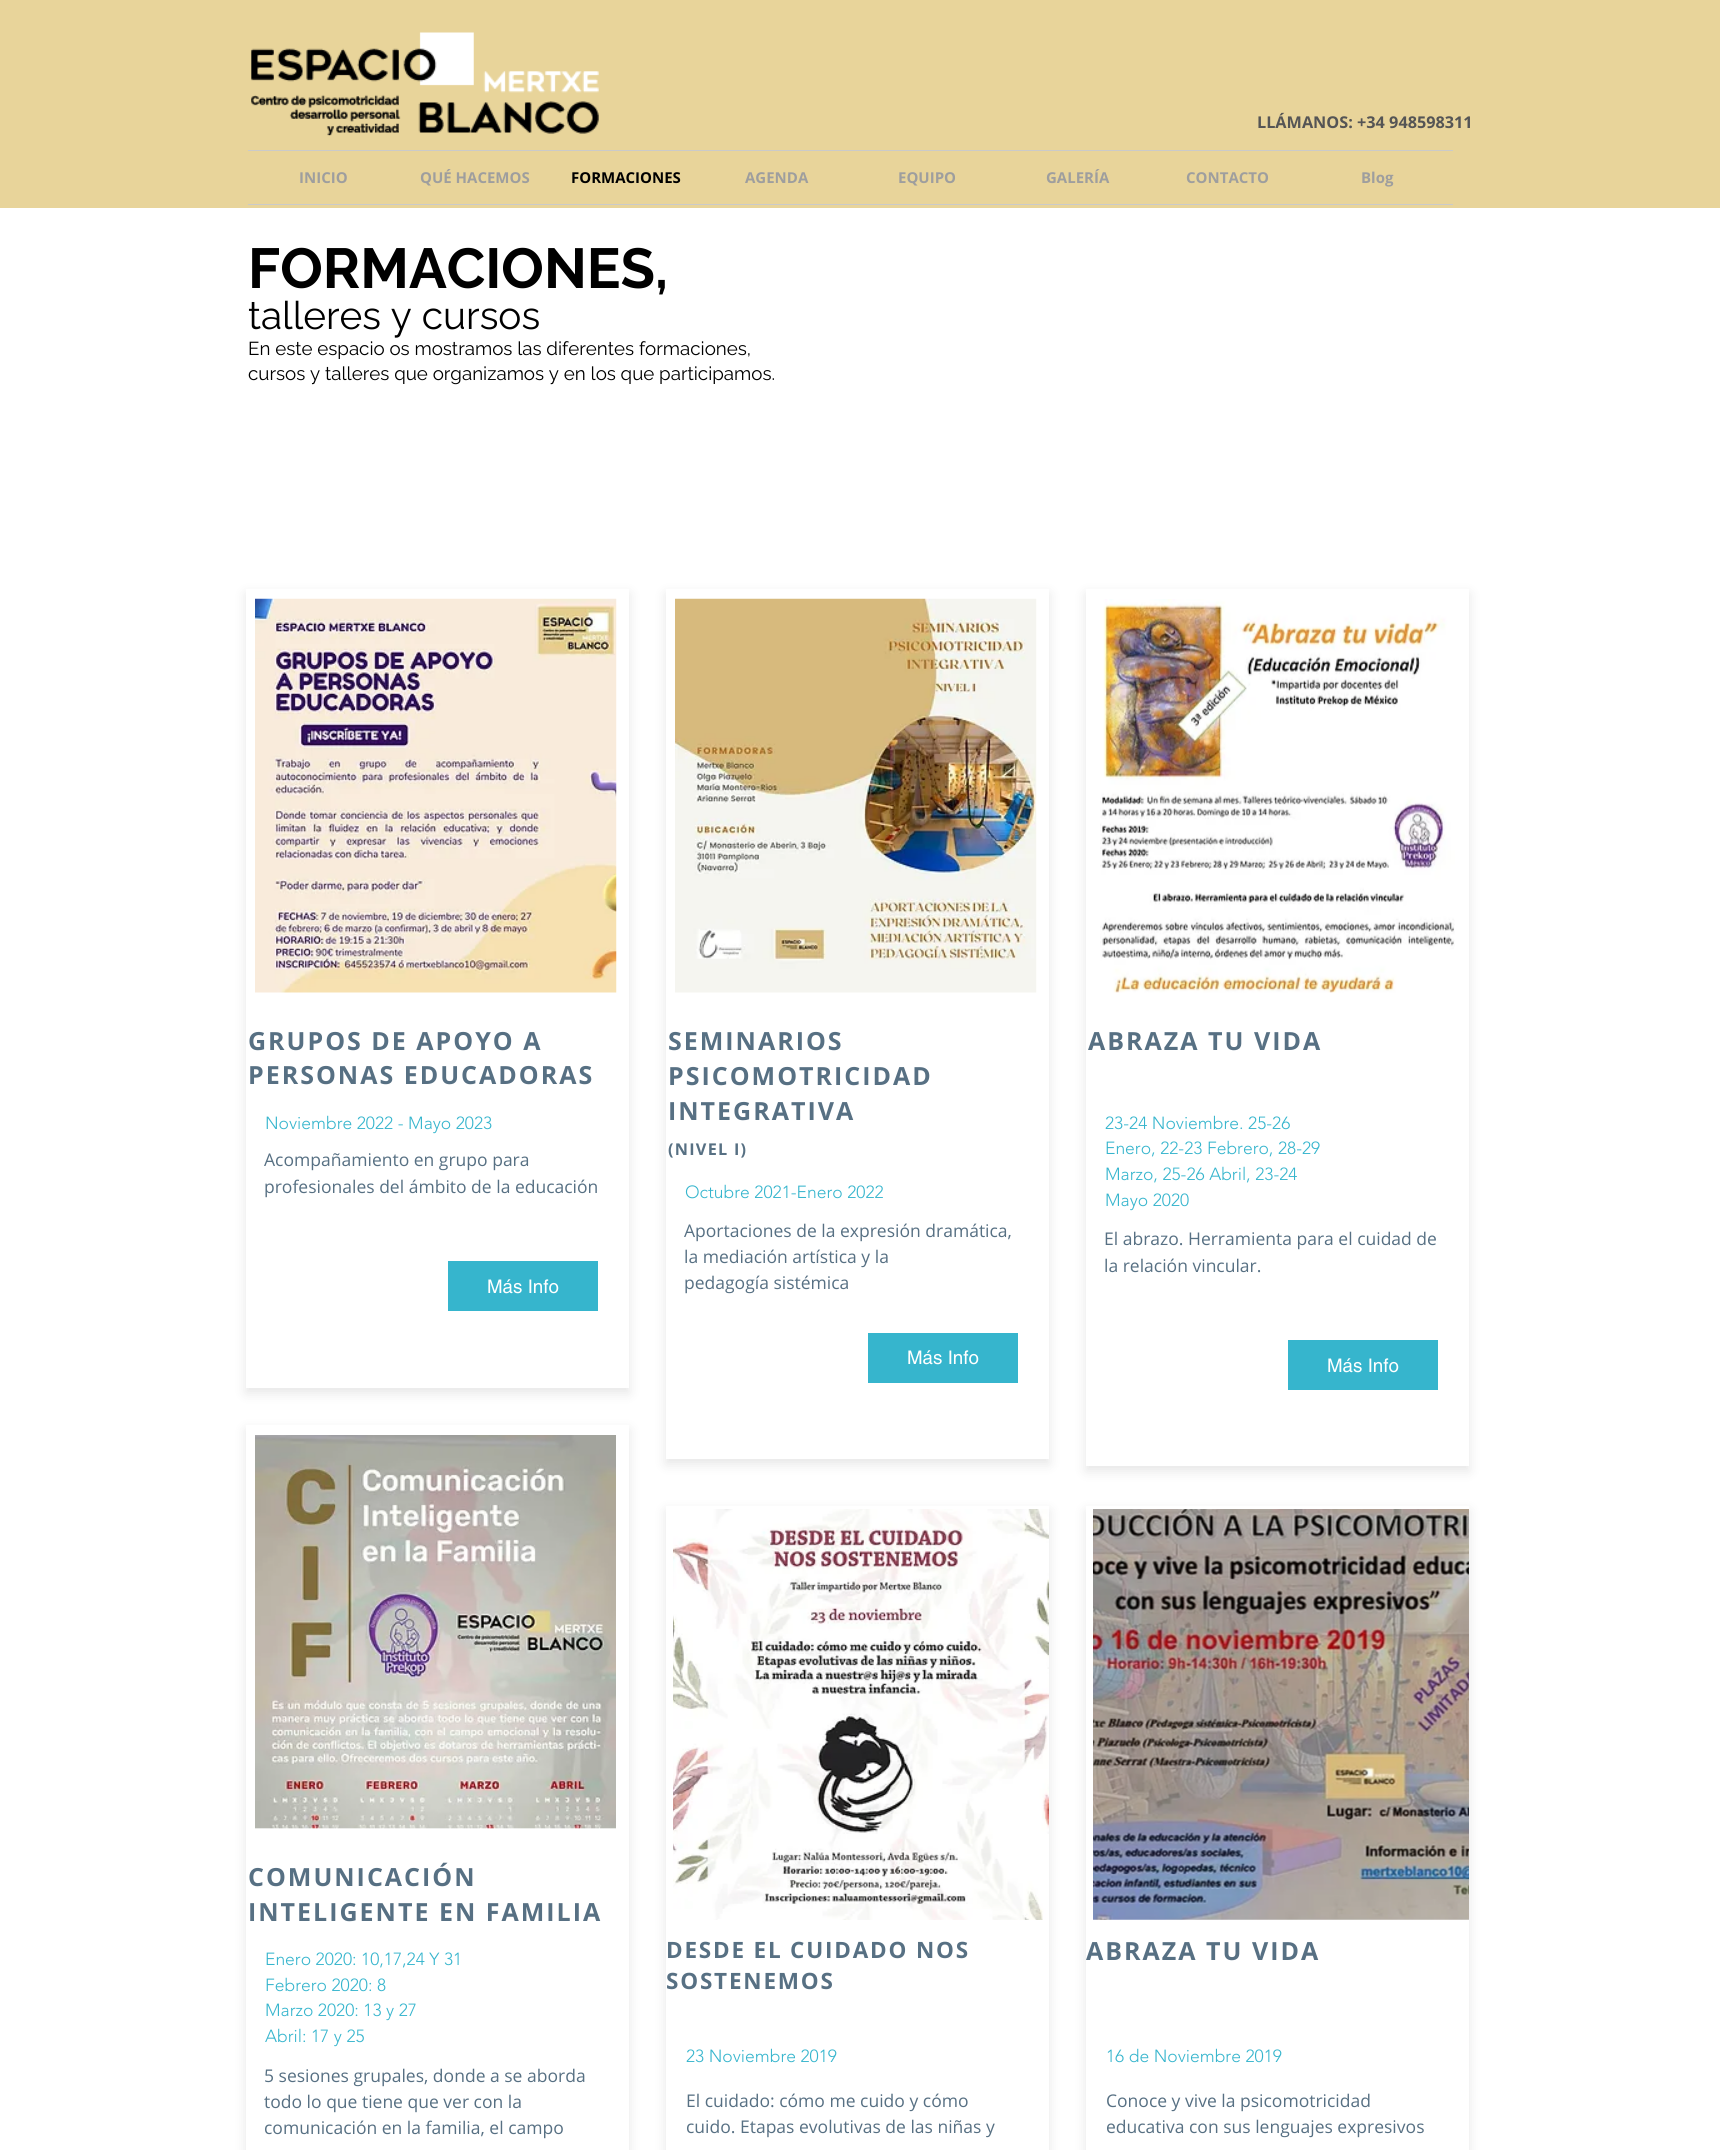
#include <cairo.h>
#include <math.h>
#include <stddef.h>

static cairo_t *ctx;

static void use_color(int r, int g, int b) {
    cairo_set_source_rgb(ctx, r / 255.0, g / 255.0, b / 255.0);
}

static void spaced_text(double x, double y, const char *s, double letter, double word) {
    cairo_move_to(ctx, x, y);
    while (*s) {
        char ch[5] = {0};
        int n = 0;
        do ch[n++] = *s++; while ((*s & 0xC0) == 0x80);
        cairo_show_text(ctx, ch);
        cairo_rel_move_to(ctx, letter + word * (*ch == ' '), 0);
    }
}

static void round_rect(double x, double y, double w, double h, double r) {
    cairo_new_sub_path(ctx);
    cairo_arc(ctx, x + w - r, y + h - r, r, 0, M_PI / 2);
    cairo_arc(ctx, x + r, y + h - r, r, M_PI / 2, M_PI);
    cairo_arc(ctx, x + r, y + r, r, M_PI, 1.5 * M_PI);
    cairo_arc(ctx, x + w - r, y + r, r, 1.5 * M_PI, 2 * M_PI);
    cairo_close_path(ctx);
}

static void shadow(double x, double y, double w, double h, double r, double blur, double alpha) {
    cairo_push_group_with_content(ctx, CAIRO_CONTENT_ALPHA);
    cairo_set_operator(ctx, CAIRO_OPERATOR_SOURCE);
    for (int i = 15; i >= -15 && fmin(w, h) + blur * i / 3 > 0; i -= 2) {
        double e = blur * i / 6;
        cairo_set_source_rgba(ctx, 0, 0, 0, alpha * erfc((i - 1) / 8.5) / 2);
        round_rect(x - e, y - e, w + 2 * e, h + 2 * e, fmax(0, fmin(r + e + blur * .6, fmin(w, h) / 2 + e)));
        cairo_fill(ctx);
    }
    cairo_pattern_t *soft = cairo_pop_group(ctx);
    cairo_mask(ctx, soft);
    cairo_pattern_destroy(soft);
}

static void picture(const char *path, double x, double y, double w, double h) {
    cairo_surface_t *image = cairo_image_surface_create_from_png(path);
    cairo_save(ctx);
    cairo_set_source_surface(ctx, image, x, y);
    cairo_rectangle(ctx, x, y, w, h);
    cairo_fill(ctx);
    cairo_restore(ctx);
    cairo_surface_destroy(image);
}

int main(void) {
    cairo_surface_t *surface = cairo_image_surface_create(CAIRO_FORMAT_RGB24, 1720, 2150);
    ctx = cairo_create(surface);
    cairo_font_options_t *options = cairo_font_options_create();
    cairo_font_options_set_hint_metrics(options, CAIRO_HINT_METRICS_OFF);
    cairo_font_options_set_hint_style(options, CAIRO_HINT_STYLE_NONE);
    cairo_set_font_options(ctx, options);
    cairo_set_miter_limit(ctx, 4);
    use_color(255, 255, 255);
    cairo_paint(ctx);
    use_color(232, 212, 154);
    cairo_rectangle(ctx, 0, 0, 1720, 208);
    cairo_fill(ctx);
    picture("img1.png", 251, 32, 348, 104);
    cairo_select_font_face(ctx, "Open Sans", CAIRO_FONT_SLANT_NORMAL, CAIRO_FONT_WEIGHT_BOLD);
    cairo_set_font_size(ctx, 16.25);
    use_color(85, 85, 85);
    cairo_move_to(ctx, 1257, 128);
    cairo_show_text(ctx, "LLÁMANOS: +34 948598311");
    use_color(202, 202, 202);
    cairo_rectangle(ctx, 248, 150, 1205, 1);
    cairo_fill(ctx);
    cairo_rectangle(ctx, 248, 204, 1205, 1);
    cairo_fill(ctx);
    cairo_set_font_size(ctx, 15);
    use_color(158, 158, 158);
    cairo_move_to(ctx, 299, 183);
    cairo_show_text(ctx, "INICIO");
    cairo_move_to(ctx, 420, 183);
    cairo_show_text(ctx, "QUÉ HACEMOS");
    use_color(0, 0, 0);
    cairo_move_to(ctx, 571, 183);
    cairo_show_text(ctx, "FORMACIONES");
    use_color(158, 158, 158);
    cairo_move_to(ctx, 745, 183);
    cairo_show_text(ctx, "AGENDA");
    cairo_move_to(ctx, 898, 183);
    cairo_show_text(ctx, "EQUIPO");
    cairo_move_to(ctx, 1046, 183);
    cairo_show_text(ctx, "GALERÍA");
    cairo_move_to(ctx, 1186, 183);
    cairo_show_text(ctx, "CONTACTO");
    cairo_move_to(ctx, 1361, 183);
    cairo_show_text(ctx, "Blog");
    cairo_select_font_face(ctx, "Raleway", CAIRO_FONT_SLANT_NORMAL, CAIRO_FONT_WEIGHT_BOLD);
    cairo_set_font_size(ctx, 56.25);
    use_color(0, 0, 0);
    cairo_move_to(ctx, 248, 288);
    cairo_show_text(ctx, "FORMACIONES,");
    cairo_select_font_face(ctx, "Raleway", CAIRO_FONT_SLANT_NORMAL, CAIRO_FONT_WEIGHT_NORMAL);
    cairo_set_font_size(ctx, 38.75);
    cairo_move_to(ctx, 248, 329);
    cairo_show_text(ctx, "talleres y cursos");
    cairo_set_font_size(ctx, 18.75);
    cairo_move_to(ctx, 248, 355);
    cairo_show_text(ctx, "En este espacio os mostramos las diferentes formaciones,");
    cairo_move_to(ctx, 248, 380);
    cairo_show_text(ctx, "cursos y talleres que organizamos y en los que participamos.");
    use_color(0, 0, 0);
    shadow(246, 594, 383, 799, 0, 6, 0.1);
    use_color(255, 255, 255);
    cairo_rectangle(ctx, 246, 589, 383, 799);
    cairo_fill(ctx);
    picture("img2.png", 255, 598, 362, 395);
    cairo_select_font_face(ctx, "Open Sans", CAIRO_FONT_SLANT_NORMAL, CAIRO_FONT_WEIGHT_BOLD);
    cairo_set_font_size(ctx, 25);
    use_color(87, 112, 131);
    spaced_text(248, 1050, "GRUPOS DE APOYO A", 2, 0);
    spaced_text(248, 1084, "PERSONAS EDUCADORAS", 2, 0);
    cairo_select_font_face(ctx, "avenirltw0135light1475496 Light", CAIRO_FONT_SLANT_NORMAL, CAIRO_FONT_WEIGHT_NORMAL);
    cairo_set_font_size(ctx, 17.5);
    use_color(54, 181, 205);
    cairo_move_to(ctx, 265, 1129);
    cairo_show_text(ctx, "Noviembre 2022 - Mayo 2023");
    cairo_select_font_face(ctx, "Open Sans", CAIRO_FONT_SLANT_NORMAL, CAIRO_FONT_WEIGHT_NORMAL);
    use_color(87, 112, 131);
    cairo_move_to(ctx, 264, 1166);
    cairo_show_text(ctx, "Acompañamiento en grupo para");
    cairo_move_to(ctx, 264, 1193);
    cairo_show_text(ctx, "profesionales del ámbito de la educación");
    use_color(54, 181, 205);
    cairo_rectangle(ctx, 448, 1261, 150, 50);
    cairo_fill(ctx);
    cairo_select_font_face(ctx, "helvetica", CAIRO_FONT_SLANT_NORMAL, CAIRO_FONT_WEIGHT_NORMAL);
    cairo_set_font_size(ctx, 18.75);
    use_color(255, 255, 255);
    cairo_move_to(ctx, 487, 1293);
    cairo_show_text(ctx, "Más Info");
    use_color(0, 0, 0);
    shadow(246, 1430, 383, 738, 0, 6, 0.1);
    use_color(255, 255, 255);
    cairo_rectangle(ctx, 246, 1425, 383, 725);
    cairo_fill(ctx);
    picture("img3.png", 255, 1435, 361, 394);
    cairo_select_font_face(ctx, "Open Sans", CAIRO_FONT_SLANT_NORMAL, CAIRO_FONT_WEIGHT_BOLD);
    cairo_set_font_size(ctx, 25);
    use_color(87, 112, 131);
    spaced_text(248, 1886, "COMUNICACIÓN", 2, 0);
    spaced_text(248, 1921, "INTELIGENTE EN FAMILIA", 2, 0);
    cairo_select_font_face(ctx, "avenirltw0135light1475496 Light", CAIRO_FONT_SLANT_NORMAL, CAIRO_FONT_WEIGHT_NORMAL);
    cairo_set_font_size(ctx, 17.5);
    use_color(54, 181, 205);
    cairo_move_to(ctx, 265, 1965);
    cairo_show_text(ctx, "Enero 2020: 10,17,24 Y 31");
    cairo_move_to(ctx, 265, 1991);
    cairo_show_text(ctx, "Febrero 2020: 8");
    cairo_move_to(ctx, 265, 2016);
    cairo_show_text(ctx, "Marzo 2020: 13 y 27");
    cairo_move_to(ctx, 265, 2042);
    cairo_show_text(ctx, "Abril: 17 y 25");
    cairo_select_font_face(ctx, "Open Sans", CAIRO_FONT_SLANT_NORMAL, CAIRO_FONT_WEIGHT_NORMAL);
    use_color(87, 112, 131);
    cairo_move_to(ctx, 264, 2082);
    cairo_show_text(ctx, "5 sesiones grupales, donde a se aborda");
    cairo_move_to(ctx, 264, 2108);
    cairo_show_text(ctx, "todo lo que tiene que ver con la");
    cairo_move_to(ctx, 264, 2134);
    cairo_show_text(ctx, "comunicación en la familia, el campo");
    use_color(0, 0, 0);
    shadow(666, 594, 383, 870, 0, 6, 0.1);
    use_color(255, 255, 255);
    cairo_rectangle(ctx, 666, 589, 383, 870);
    cairo_fill(ctx);
    picture("img4.png", 675, 598, 362, 395);
    cairo_select_font_face(ctx, "Open Sans", CAIRO_FONT_SLANT_NORMAL, CAIRO_FONT_WEIGHT_BOLD);
    cairo_set_font_size(ctx, 25);
    use_color(87, 112, 131);
    spaced_text(668, 1050, "SEMINARIOS", 2, 0);
    spaced_text(668, 1085, "PSICOMOTRICIDAD", 2, 0);
    spaced_text(668, 1120, "INTEGRATIVA", 2, 0);
    cairo_set_font_size(ctx, 16.25);
    spaced_text(668, 1155, "(NIVEL I)", 1.25, 0);
    cairo_select_font_face(ctx, "avenirltw0135light1475496 Light", CAIRO_FONT_SLANT_NORMAL, CAIRO_FONT_WEIGHT_NORMAL);
    cairo_set_font_size(ctx, 17.5);
    use_color(54, 181, 205);
    cairo_move_to(ctx, 685, 1198);
    cairo_show_text(ctx, "Octubre 2021-Enero 2022");
    cairo_select_font_face(ctx, "Open Sans", CAIRO_FONT_SLANT_NORMAL, CAIRO_FONT_WEIGHT_NORMAL);
    use_color(87, 112, 131);
    cairo_move_to(ctx, 684, 1237);
    cairo_show_text(ctx, "Aportaciones de la expresión dramática,");
    cairo_move_to(ctx, 684, 1263);
    cairo_show_text(ctx, "la mediación artística y la");
    cairo_move_to(ctx, 684, 1289);
    cairo_show_text(ctx, "pedagogía sistémica");
    use_color(54, 181, 205);
    cairo_rectangle(ctx, 868, 1333, 150, 50);
    cairo_fill(ctx);
    cairo_select_font_face(ctx, "helvetica", CAIRO_FONT_SLANT_NORMAL, CAIRO_FONT_WEIGHT_NORMAL);
    cairo_set_font_size(ctx, 18.75);
    use_color(255, 255, 255);
    cairo_move_to(ctx, 907, 1364);
    cairo_show_text(ctx, "Más Info");
    use_color(0, 0, 0);
    shadow(1086, 594, 383, 877, 0, 6, 0.1);
    use_color(255, 255, 255);
    cairo_rectangle(ctx, 1086, 589, 383, 877);
    cairo_fill(ctx);
    picture("img5.png", 1100, 599, 355, 394);
    cairo_select_font_face(ctx, "Open Sans", CAIRO_FONT_SLANT_NORMAL, CAIRO_FONT_WEIGHT_BOLD);
    cairo_set_font_size(ctx, 25);
    use_color(87, 112, 131);
    spaced_text(1088, 1050, "ABRAZA TU VIDA", 2, 0);
    cairo_select_font_face(ctx, "avenirltw0135light1475496 Light", CAIRO_FONT_SLANT_NORMAL, CAIRO_FONT_WEIGHT_NORMAL);
    cairo_set_font_size(ctx, 17.5);
    use_color(54, 181, 205);
    cairo_move_to(ctx, 1105, 1129);
    cairo_show_text(ctx, "23-24 Noviembre. 25-26");
    cairo_move_to(ctx, 1105, 1154);
    cairo_show_text(ctx, "Enero, 22-23 Febrero, 28-29");
    cairo_move_to(ctx, 1105, 1180);
    cairo_show_text(ctx, "Marzo, 25-26 Abril, 23-24");
    cairo_move_to(ctx, 1105, 1206);
    cairo_show_text(ctx, "Mayo 2020");
    cairo_select_font_face(ctx, "Open Sans", CAIRO_FONT_SLANT_NORMAL, CAIRO_FONT_WEIGHT_NORMAL);
    use_color(87, 112, 131);
    cairo_move_to(ctx, 1104, 1245);
    cairo_show_text(ctx, "El abrazo. Herramienta para el cuidad de");
    cairo_move_to(ctx, 1104, 1272);
    cairo_show_text(ctx, "la relación vincular.");
    use_color(54, 181, 205);
    cairo_rectangle(ctx, 1288, 1340, 150, 50);
    cairo_fill(ctx);
    cairo_select_font_face(ctx, "helvetica", CAIRO_FONT_SLANT_NORMAL, CAIRO_FONT_WEIGHT_NORMAL);
    cairo_set_font_size(ctx, 18.75);
    use_color(255, 255, 255);
    cairo_move_to(ctx, 1327, 1372);
    cairo_show_text(ctx, "Más Info");
    use_color(0, 0, 0);
    shadow(666, 1511, 383, 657, 0, 6, 0.1);
    use_color(255, 255, 255);
    cairo_rectangle(ctx, 666, 1506, 383, 644);
    cairo_fill(ctx);
    picture("img6.png", 673, 1509, 376, 411);
    cairo_select_font_face(ctx, "Open Sans", CAIRO_FONT_SLANT_NORMAL, CAIRO_FONT_WEIGHT_BOLD);
    cairo_set_font_size(ctx, 22.5);
    use_color(87, 112, 131);
    spaced_text(666, 1958, "DESDE EL CUIDADO NOS", 1.8, 0);
    spaced_text(666, 1989, "SOSTENEMOS", 1.8, 0);
    cairo_select_font_face(ctx, "avenirltw0135light1475496 Light", CAIRO_FONT_SLANT_NORMAL, CAIRO_FONT_WEIGHT_NORMAL);
    cairo_set_font_size(ctx, 17.5);
    use_color(54, 181, 205);
    cairo_move_to(ctx, 686, 2062);
    cairo_show_text(ctx, "23 Noviembre 2019");
    cairo_select_font_face(ctx, "Open Sans", CAIRO_FONT_SLANT_NORMAL, CAIRO_FONT_WEIGHT_NORMAL);
    use_color(87, 112, 131);
    cairo_move_to(ctx, 686, 2107);
    cairo_show_text(ctx, "El cuidado: cómo me cuido y cómo");
    cairo_move_to(ctx, 686, 2133);
    cairo_show_text(ctx, "cuido. Etapas evolutivas de las niñas y");
    use_color(0, 0, 0);
    shadow(1086, 1511, 383, 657, 0, 6, 0.1);
    use_color(255, 255, 255);
    cairo_rectangle(ctx, 1086, 1506, 383, 644);
    cairo_fill(ctx);
    picture("img7.png", 1093, 1509, 376, 411);
    cairo_select_font_face(ctx, "Open Sans", CAIRO_FONT_SLANT_NORMAL, CAIRO_FONT_WEIGHT_BOLD);
    cairo_set_font_size(ctx, 25);
    use_color(87, 112, 131);
    spaced_text(1086, 1960, "ABRAZA TU VIDA", 2, 0);
    cairo_select_font_face(ctx, "avenirltw0135light1475496 Light", CAIRO_FONT_SLANT_NORMAL, CAIRO_FONT_WEIGHT_NORMAL);
    cairo_set_font_size(ctx, 17.5);
    use_color(54, 181, 205);
    cairo_move_to(ctx, 1106, 2062);
    cairo_show_text(ctx, "16 de Noviembre 2019");
    cairo_select_font_face(ctx, "Open Sans", CAIRO_FONT_SLANT_NORMAL, CAIRO_FONT_WEIGHT_NORMAL);
    use_color(87, 112, 131);
    cairo_move_to(ctx, 1106, 2107);
    cairo_show_text(ctx, "Conoce y vive la psicomotricidad");
    cairo_move_to(ctx, 1106, 2133);
    cairo_show_text(ctx, "educativa con sus lenguajes expresivos");
    cairo_surface_write_to_png(surface, "result.png");
    cairo_font_options_destroy(options);
    cairo_destroy(ctx);
    cairo_surface_destroy(surface);
    return 0;
}
